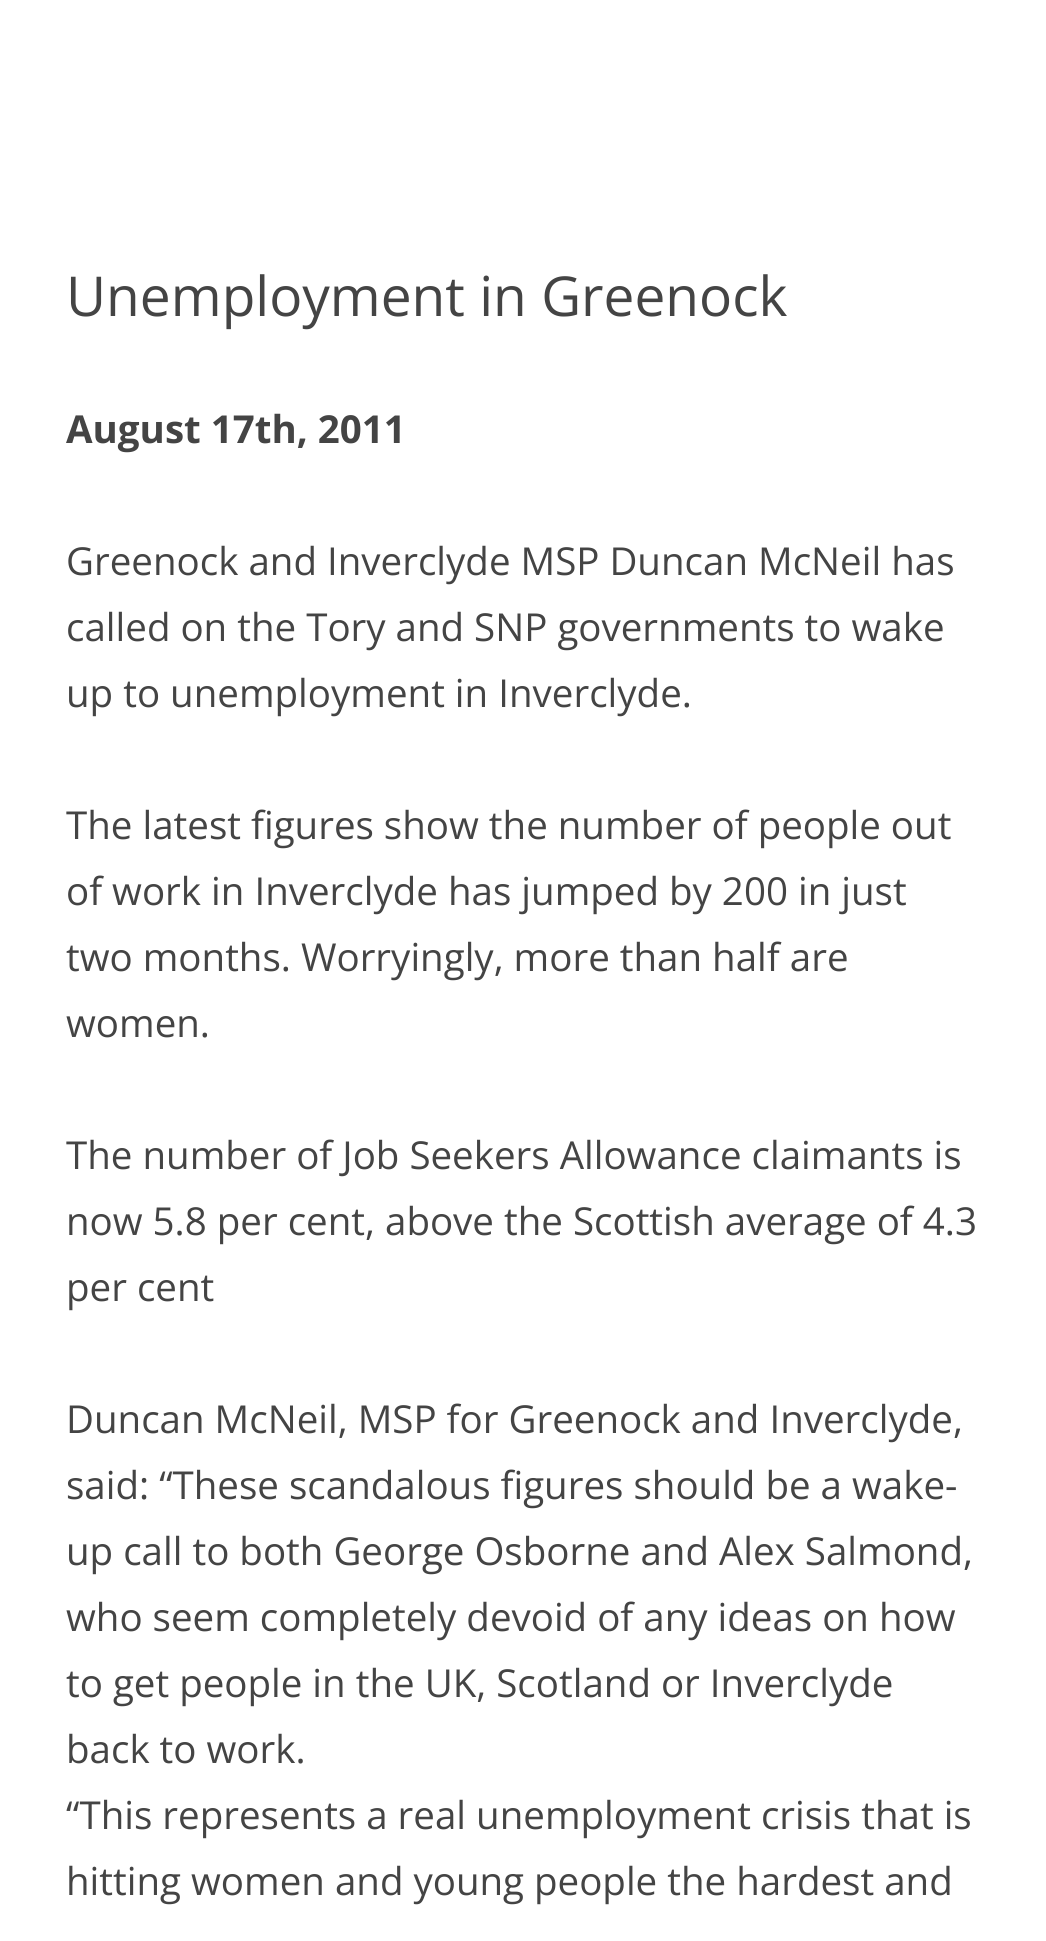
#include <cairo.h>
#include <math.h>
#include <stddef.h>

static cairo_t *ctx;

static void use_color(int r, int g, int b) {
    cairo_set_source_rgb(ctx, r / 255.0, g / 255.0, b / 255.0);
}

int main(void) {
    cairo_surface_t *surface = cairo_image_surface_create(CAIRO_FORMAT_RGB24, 1046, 1941);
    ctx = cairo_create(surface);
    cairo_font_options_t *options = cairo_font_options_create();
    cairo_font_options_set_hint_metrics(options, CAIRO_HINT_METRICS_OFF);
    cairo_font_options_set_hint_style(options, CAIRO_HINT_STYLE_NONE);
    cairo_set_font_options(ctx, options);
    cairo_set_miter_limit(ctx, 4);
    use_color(255, 255, 255);
    cairo_paint(ctx);
    cairo_select_font_face(ctx, "Open Sans", CAIRO_FONT_SLANT_NORMAL, CAIRO_FONT_WEIGHT_NORMAL);
    cairo_set_font_size(ctx, 55);
    use_color(68, 68, 68);
    cairo_move_to(ctx, 66, 316);
    cairo_show_text(ctx, "Unemployment in Greenock");
    cairo_select_font_face(ctx, "Open Sans", CAIRO_FONT_SLANT_NORMAL, CAIRO_FONT_WEIGHT_BOLD);
    cairo_set_font_size(ctx, 38.5);
    cairo_move_to(ctx, 66, 443);
    cairo_show_text(ctx, "August 17th, 2011");
    cairo_select_font_face(ctx, "Open Sans", CAIRO_FONT_SLANT_NORMAL, CAIRO_FONT_WEIGHT_NORMAL);
    cairo_move_to(ctx, 66, 575);
    cairo_show_text(ctx, "Greenock and Inverclyde MSP Duncan McNeil has");
    cairo_move_to(ctx, 66, 641);
    cairo_show_text(ctx, "called on the Tory and SNP governments to wake");
    cairo_move_to(ctx, 66, 707);
    cairo_show_text(ctx, "up to unemployment in Inverclyde.");
    cairo_move_to(ctx, 66, 839);
    cairo_show_text(ctx, "The latest figures show the number of people out");
    cairo_move_to(ctx, 66, 905);
    cairo_show_text(ctx, "of work in Inverclyde has jumped by 200 in just");
    cairo_move_to(ctx, 66, 971);
    cairo_show_text(ctx, "two months. Worryingly, more than half are");
    cairo_move_to(ctx, 66, 1037);
    cairo_show_text(ctx, "women.");
    cairo_move_to(ctx, 66, 1169);
    cairo_show_text(ctx, "The number of Job Seekers Allowance claimants is");
    cairo_move_to(ctx, 66, 1235);
    cairo_show_text(ctx, "now 5.8 per cent, above the Scottish average of 4.3");
    cairo_move_to(ctx, 66, 1301);
    cairo_show_text(ctx, "per cent");
    cairo_move_to(ctx, 66, 1433);
    cairo_show_text(ctx, "Duncan McNeil, MSP for Greenock and Inverclyde,");
    cairo_move_to(ctx, 66, 1499);
    cairo_show_text(ctx, "said: “These scandalous figures should be a wake-");
    cairo_move_to(ctx, 66, 1565);
    cairo_show_text(ctx, "up call to both George Osborne and Alex Salmond,");
    cairo_move_to(ctx, 66, 1631);
    cairo_show_text(ctx, "who seem completely devoid of any ideas on how");
    cairo_move_to(ctx, 66, 1697);
    cairo_show_text(ctx, "to get people in the UK, Scotland or Inverclyde");
    cairo_move_to(ctx, 66, 1763);
    cairo_show_text(ctx, "back to work.");
    cairo_move_to(ctx, 66, 1829);
    cairo_show_text(ctx, "“This represents a real unemployment crisis that is");
    cairo_move_to(ctx, 66, 1895);
    cairo_show_text(ctx, "hitting women and young people the hardest and");
    cairo_surface_write_to_png(surface, "result.png");
    cairo_font_options_destroy(options);
    cairo_destroy(ctx);
    cairo_surface_destroy(surface);
    return 0;
}
